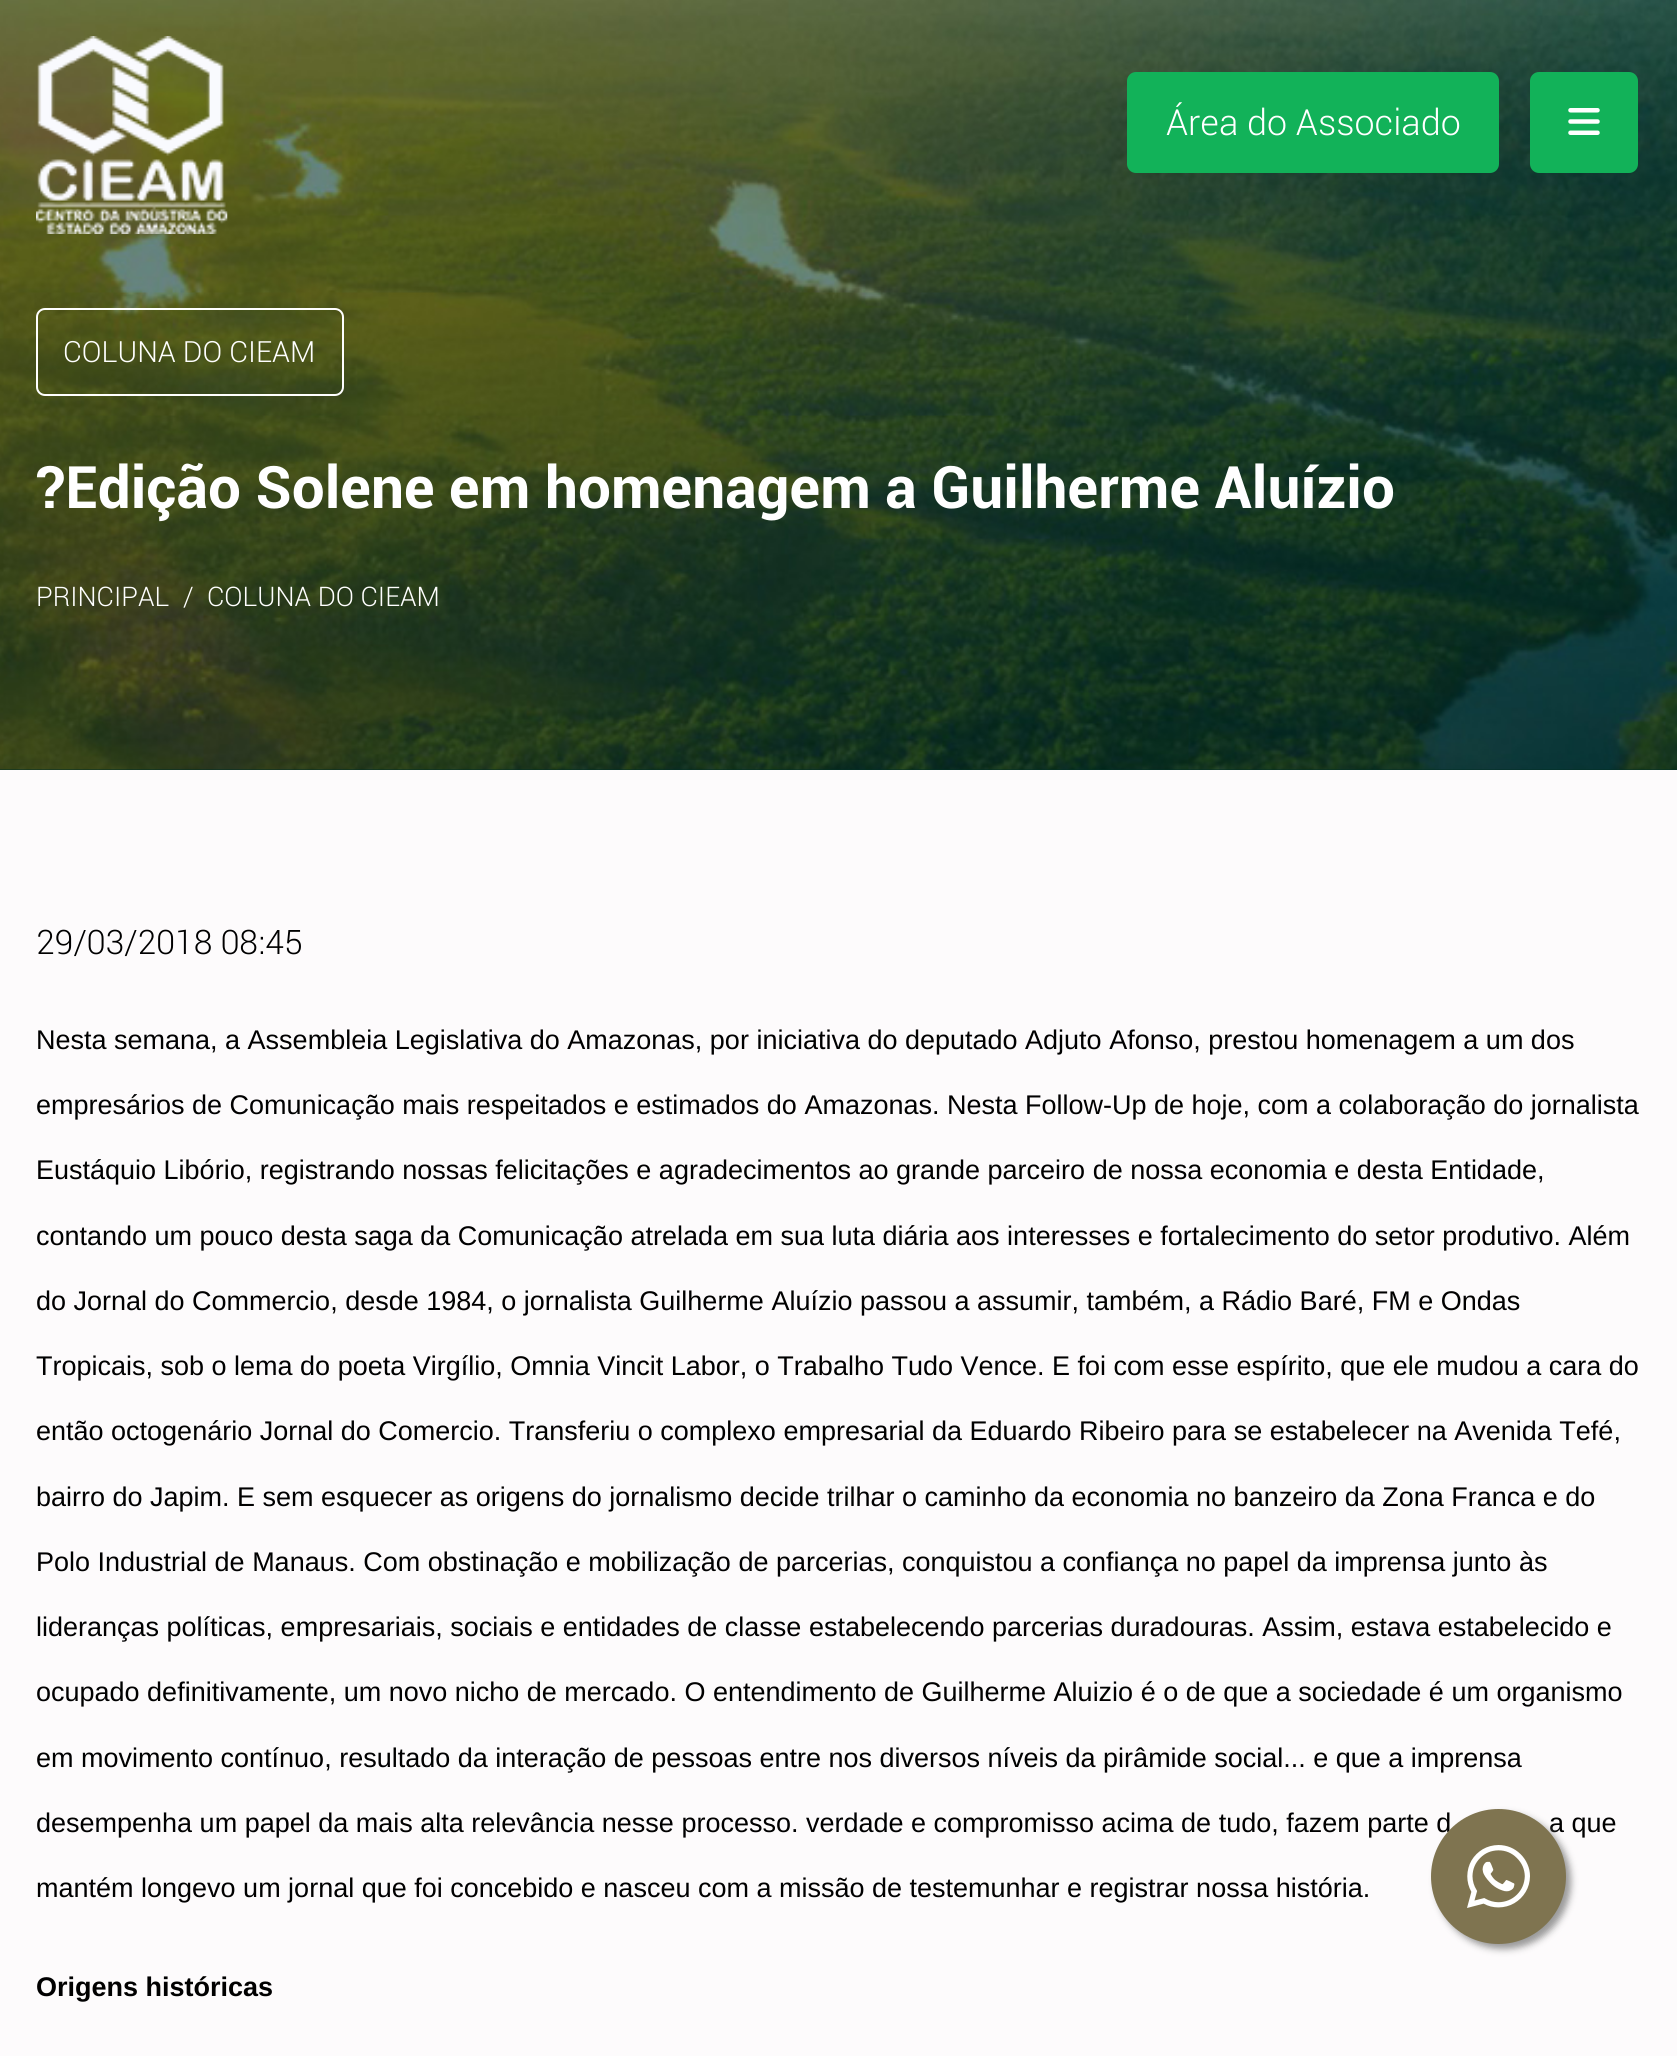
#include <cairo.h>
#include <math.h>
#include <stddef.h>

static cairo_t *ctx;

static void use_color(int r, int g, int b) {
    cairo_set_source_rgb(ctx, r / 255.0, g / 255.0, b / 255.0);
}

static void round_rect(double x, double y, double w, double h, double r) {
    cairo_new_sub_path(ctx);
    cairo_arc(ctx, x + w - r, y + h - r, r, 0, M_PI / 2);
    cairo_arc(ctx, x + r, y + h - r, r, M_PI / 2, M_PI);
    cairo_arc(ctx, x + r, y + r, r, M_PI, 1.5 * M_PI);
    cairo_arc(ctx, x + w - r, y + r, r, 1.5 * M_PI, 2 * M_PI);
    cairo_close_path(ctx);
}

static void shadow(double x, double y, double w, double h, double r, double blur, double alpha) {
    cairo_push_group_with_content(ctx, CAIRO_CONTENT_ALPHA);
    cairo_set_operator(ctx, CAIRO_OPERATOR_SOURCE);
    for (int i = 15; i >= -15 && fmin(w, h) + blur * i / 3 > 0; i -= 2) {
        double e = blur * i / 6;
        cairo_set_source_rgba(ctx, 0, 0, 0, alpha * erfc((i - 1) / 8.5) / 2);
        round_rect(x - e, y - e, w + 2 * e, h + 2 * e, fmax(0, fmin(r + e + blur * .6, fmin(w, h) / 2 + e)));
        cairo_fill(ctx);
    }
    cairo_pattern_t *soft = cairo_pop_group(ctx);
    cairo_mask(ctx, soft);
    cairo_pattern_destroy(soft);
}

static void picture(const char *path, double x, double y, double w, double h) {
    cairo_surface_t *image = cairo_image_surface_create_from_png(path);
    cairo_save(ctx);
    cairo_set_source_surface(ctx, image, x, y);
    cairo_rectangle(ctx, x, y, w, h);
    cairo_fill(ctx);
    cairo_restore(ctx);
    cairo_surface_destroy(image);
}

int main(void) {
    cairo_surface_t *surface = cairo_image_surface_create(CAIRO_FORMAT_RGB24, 1677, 2056);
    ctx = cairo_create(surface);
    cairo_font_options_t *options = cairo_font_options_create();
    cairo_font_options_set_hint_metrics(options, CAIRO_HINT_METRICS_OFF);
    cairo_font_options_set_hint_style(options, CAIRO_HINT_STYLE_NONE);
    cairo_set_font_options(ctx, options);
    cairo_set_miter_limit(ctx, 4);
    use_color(253, 251, 252);
    cairo_paint(ctx);
    use_color(2, 48, 39);
    cairo_rectangle(ctx, 0, 769, 1677, 1);
    cairo_fill(ctx);
    picture("img1.png", 0, 0, 1677, 770);
    picture("img2.png", 36, 36, 192, 198);
    use_color(18, 178, 89);
    round_rect(1127, 72, 372, 101, 9);
    cairo_fill(ctx);
    cairo_select_font_face(ctx, "Roboto Light", CAIRO_FONT_SLANT_NORMAL, CAIRO_FONT_WEIGHT_NORMAL);
    cairo_set_font_size(ctx, 36);
    use_color(255, 255, 255);
    cairo_move_to(ctx, 1166, 135);
    cairo_show_text(ctx, "Área do Associado");
    round_rect(37, 309, 306, 86, 8);
    cairo_stroke(ctx);
    cairo_set_font_size(ctx, 29.25);
    cairo_move_to(ctx, 63, 362);
    cairo_show_text(ctx, "COLUNA DO CIEAM");
    cairo_select_font_face(ctx, "Roboto", CAIRO_FONT_SLANT_NORMAL, CAIRO_FONT_WEIGHT_BOLD);
    cairo_set_font_size(ctx, 58.5);
    cairo_move_to(ctx, 36, 508);
    cairo_show_text(ctx, "?Edição Solene em homenagem a Guilherme Aluízio");
    cairo_select_font_face(ctx, "Roboto Light", CAIRO_FONT_SLANT_NORMAL, CAIRO_FONT_WEIGHT_NORMAL);
    cairo_set_font_size(ctx, 27);
    cairo_move_to(ctx, 36, 606);
    cairo_show_text(ctx, "PRINCIPAL");
    cairo_move_to(ctx, 183, 606);
    cairo_show_text(ctx, "/");
    cairo_move_to(ctx, 207, 606);
    cairo_show_text(ctx, "COLUNA DO CIEAM");
    use_color(18, 178, 89);
    round_rect(1530, 72, 108, 101, 9);
    cairo_fill(ctx);
    picture("img3.png", 1568, 108, 32, 27);
    cairo_set_font_size(ctx, 33.75);
    use_color(0, 0, 0);
    cairo_move_to(ctx, 36, 954);
    cairo_show_text(ctx, "29/03/2018 08:45");
    cairo_select_font_face(ctx, "Liberation Sans", CAIRO_FONT_SLANT_NORMAL, CAIRO_FONT_WEIGHT_NORMAL);
    cairo_set_font_size(ctx, 27);
    cairo_move_to(ctx, 36, 1049);
    cairo_show_text(ctx, "Nesta semana, a Assembleia Legislativa do Amazonas, por iniciativa do deputado Adjuto Afonso, prestou homenagem a um dos");
    cairo_move_to(ctx, 36, 1114);
    cairo_show_text(ctx, "empresários de Comunicação mais respeitados e estimados do Amazonas. Nesta Follow-Up de hoje, com a colaboração do jornalista");
    cairo_move_to(ctx, 36, 1179);
    cairo_show_text(ctx, "Eustáquio Libório, registrando nossas felicitações e agradecimentos ao grande parceiro de nossa economia e desta Entidade,");
    cairo_move_to(ctx, 36, 1245);
    cairo_show_text(ctx, "contando um pouco desta saga da Comunicação atrelada em sua luta diária aos interesses e fortalecimento do setor produtivo. Além");
    cairo_move_to(ctx, 36, 1310);
    cairo_show_text(ctx, "do Jornal do Commercio, desde 1984, o jornalista Guilherme Aluízio passou a assumir, também, a Rádio Baré, FM e Ondas");
    cairo_move_to(ctx, 36, 1375);
    cairo_show_text(ctx, "Tropicais, sob o lema do poeta Virgílio, Omnia Vincit Labor, o Trabalho Tudo Vence. E foi com esse espírito, que ele mudou a cara do");
    cairo_move_to(ctx, 36, 1440);
    cairo_show_text(ctx, "então octogenário Jornal do Comercio. Transferiu o complexo empresarial da Eduardo Ribeiro para se estabelecer na Avenida Tefé,");
    cairo_move_to(ctx, 36, 1506);
    cairo_show_text(ctx, "bairro do Japim. E sem esquecer as origens do jornalismo decide trilhar o caminho da economia no banzeiro da Zona Franca e do");
    cairo_move_to(ctx, 36, 1571);
    cairo_show_text(ctx, "Polo Industrial de Manaus. Com obstinação e mobilização de parcerias, conquistou a confiança no papel da imprensa junto às");
    cairo_move_to(ctx, 36, 1636);
    cairo_show_text(ctx, "lideranças políticas, empresariais, sociais e entidades de classe estabelecendo parcerias duradouras. Assim, estava estabelecido e");
    cairo_move_to(ctx, 36, 1701);
    cairo_show_text(ctx, "ocupado definitivamente, um novo nicho de mercado. O entendimento de Guilherme Aluizio é o de que a sociedade é um organismo");
    cairo_move_to(ctx, 36, 1767);
    cairo_show_text(ctx, "em movimento contínuo, resultado da interação de pessoas entre nos diversos níveis da pirâmide social... e que a imprensa");
    cairo_move_to(ctx, 36, 1832);
    cairo_show_text(ctx, "desempenha um papel da mais alta relevância nesse processo. verdade e compromisso acima de tudo, fazem parte d");
    cairo_move_to(ctx, 1549, 1832);
    cairo_show_text(ctx, "a que");
    cairo_move_to(ctx, 36, 1897);
    cairo_show_text(ctx, "mantém longevo um jornal que foi concebido e nasceu com a missão de testemunhar e registrar nossa história.");
    cairo_select_font_face(ctx, "Liberation Sans", CAIRO_FONT_SLANT_NORMAL, CAIRO_FONT_WEIGHT_BOLD);
    cairo_move_to(ctx, 36, 1996);
    cairo_show_text(ctx, "Origens históricas");
    use_color(153, 153, 153);
    shadow(1436, 1814, 135, 135, 67.5, 3.5, 1);
    use_color(127, 116, 80);
    cairo_arc(ctx, 1498.5, 1876.5, 67.5, 0, 2 * M_PI);
    cairo_fill(ctx);
    picture("img4.png", 1467, 1845, 63, 63);
    cairo_surface_write_to_png(surface, "result.png");
    cairo_font_options_destroy(options);
    cairo_destroy(ctx);
    cairo_surface_destroy(surface);
    return 0;
}
